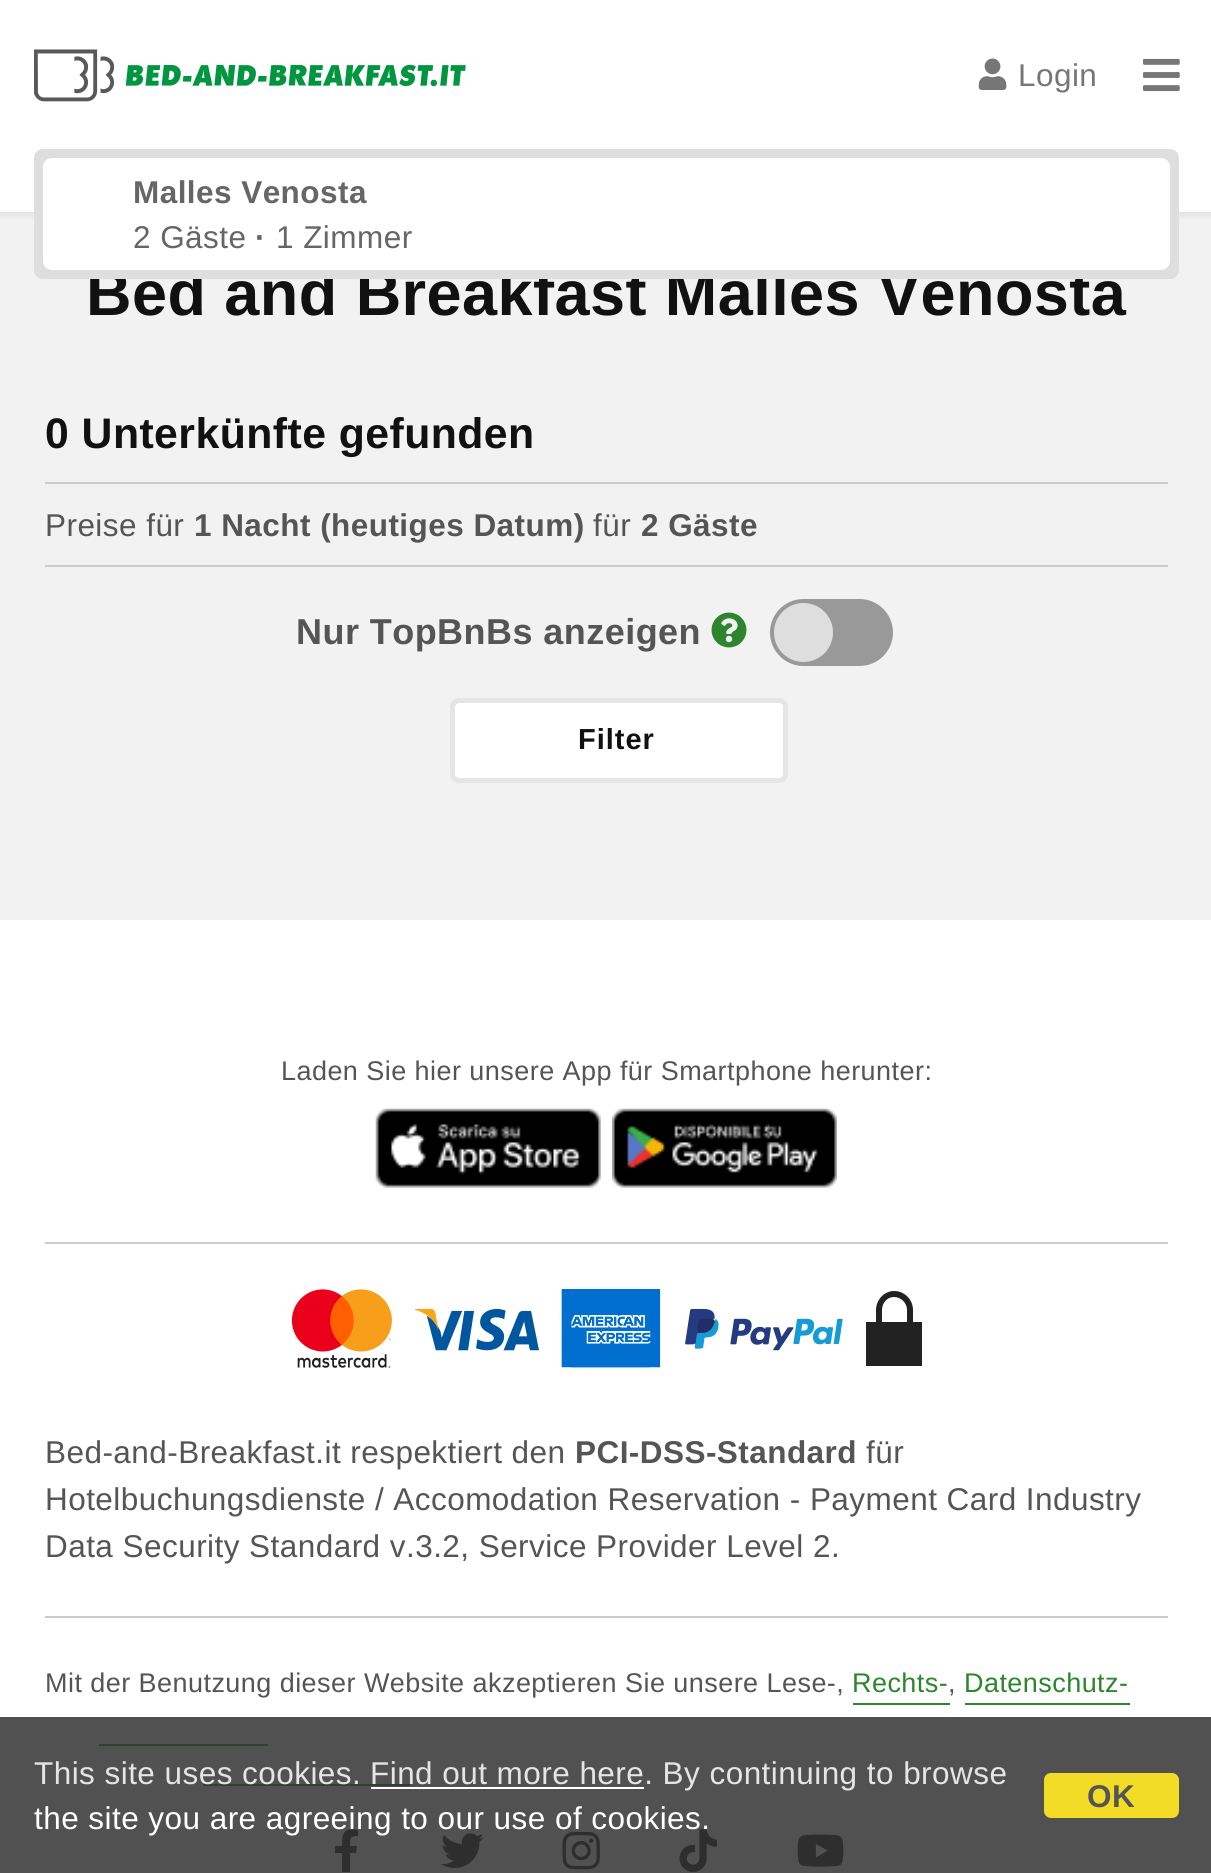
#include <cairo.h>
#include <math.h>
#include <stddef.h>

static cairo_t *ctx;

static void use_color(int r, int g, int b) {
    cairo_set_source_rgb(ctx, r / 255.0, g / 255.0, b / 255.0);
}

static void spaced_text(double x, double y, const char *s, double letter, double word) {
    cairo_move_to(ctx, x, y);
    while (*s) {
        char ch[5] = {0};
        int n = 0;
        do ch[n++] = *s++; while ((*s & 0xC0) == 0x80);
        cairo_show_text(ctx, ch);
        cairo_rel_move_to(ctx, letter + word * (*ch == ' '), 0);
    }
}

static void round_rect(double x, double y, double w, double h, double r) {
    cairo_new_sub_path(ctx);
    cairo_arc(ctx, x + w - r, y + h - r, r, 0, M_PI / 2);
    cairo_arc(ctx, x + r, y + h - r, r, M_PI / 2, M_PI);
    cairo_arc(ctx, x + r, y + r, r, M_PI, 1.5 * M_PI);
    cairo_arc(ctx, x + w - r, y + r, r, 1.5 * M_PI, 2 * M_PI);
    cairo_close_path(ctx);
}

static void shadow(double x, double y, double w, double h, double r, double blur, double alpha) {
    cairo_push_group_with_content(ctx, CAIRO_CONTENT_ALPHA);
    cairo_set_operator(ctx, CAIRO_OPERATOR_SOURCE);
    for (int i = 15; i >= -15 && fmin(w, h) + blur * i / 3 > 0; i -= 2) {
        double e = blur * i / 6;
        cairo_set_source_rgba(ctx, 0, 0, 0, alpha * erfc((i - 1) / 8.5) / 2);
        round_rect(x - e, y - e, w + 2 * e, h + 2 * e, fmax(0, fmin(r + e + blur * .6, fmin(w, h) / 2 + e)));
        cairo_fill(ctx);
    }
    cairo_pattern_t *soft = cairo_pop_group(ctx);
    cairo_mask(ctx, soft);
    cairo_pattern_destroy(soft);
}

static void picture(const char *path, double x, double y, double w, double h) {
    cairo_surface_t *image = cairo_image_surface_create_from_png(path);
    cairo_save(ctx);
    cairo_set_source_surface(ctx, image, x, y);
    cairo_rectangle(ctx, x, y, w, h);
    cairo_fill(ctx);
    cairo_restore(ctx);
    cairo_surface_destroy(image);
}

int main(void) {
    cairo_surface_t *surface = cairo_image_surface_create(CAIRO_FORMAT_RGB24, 1211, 1873);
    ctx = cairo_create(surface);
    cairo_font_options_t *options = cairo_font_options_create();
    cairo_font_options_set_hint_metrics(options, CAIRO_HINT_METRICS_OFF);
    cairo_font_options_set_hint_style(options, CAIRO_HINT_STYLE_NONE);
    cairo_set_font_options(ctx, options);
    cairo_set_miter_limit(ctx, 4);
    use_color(242, 242, 242);
    cairo_paint(ctx);
    use_color(0, 0, 0);
    shadow(0, 2, 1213, 212, 0, 3.5, 0.1);
    use_color(255, 255, 255);
    cairo_rectangle(ctx, 0, 0, 1211, 212);
    cairo_fill(ctx);
    picture("img1.png", 34, 49, 432, 53);
    picture("img2.png", 978, 58, 29, 32);
    cairo_select_font_face(ctx, "Liberation Sans", CAIRO_FONT_SLANT_NORMAL, CAIRO_FONT_WEIGHT_NORMAL);
    cairo_set_font_size(ctx, 31.5);
    use_color(118, 118, 118);
    spaced_text(1018, 86, "Login", 0.45, 0);
    picture("img3.png", 1143, 58, 37, 34);
    cairo_select_font_face(ctx, "Liberation Sans", CAIRO_FONT_SLANT_NORMAL, CAIRO_FONT_WEIGHT_BOLD);
    cairo_set_font_size(ctx, 63);
    use_color(17, 17, 17);
    spaced_text(86, 315, "Bed and Breakfast Malles Venosta", 0.45, 0);
    use_color(222, 222, 222);
    round_rect(34, 149, 1145, 130, 9);
    cairo_fill(ctx);
    use_color(255, 255, 255);
    round_rect(43, 158, 1127, 112, 9);
    cairo_fill(ctx);
    cairo_set_font_size(ctx, 31.5);
    use_color(102, 102, 102);
    spaced_text(133, 203, "Malles Venosta", 0.45, 0);
    cairo_select_font_face(ctx, "Liberation Sans", CAIRO_FONT_SLANT_NORMAL, CAIRO_FONT_WEIGHT_NORMAL);
    spaced_text(133, 248, "2 Gäste", 0.45, 0);
    cairo_select_font_face(ctx, "Liberation Sans", CAIRO_FONT_SLANT_NORMAL, CAIRO_FONT_WEIGHT_BOLD);
    spaced_text(255, 248, "·", 0.45, 0);
    cairo_select_font_face(ctx, "Liberation Sans", CAIRO_FONT_SLANT_NORMAL, CAIRO_FONT_WEIGHT_NORMAL);
    spaced_text(276, 248, "1 Zimmer", 0.45, 0);
    cairo_select_font_face(ctx, "Liberation Sans", CAIRO_FONT_SLANT_NORMAL, CAIRO_FONT_WEIGHT_BOLD);
    cairo_set_font_size(ctx, 42.75);
    use_color(17, 17, 17);
    spaced_text(45, 448, "0 Unterkünfte gefunden", 0.45, 0);
    use_color(204, 204, 204);
    cairo_rectangle(ctx, 45, 482, 1123, 2);
    cairo_fill(ctx);
    cairo_rectangle(ctx, 45, 565, 1123, 2);
    cairo_fill(ctx);
    cairo_select_font_face(ctx, "Liberation Sans", CAIRO_FONT_SLANT_NORMAL, CAIRO_FONT_WEIGHT_NORMAL);
    cairo_set_font_size(ctx, 31.5);
    use_color(85, 85, 85);
    spaced_text(45, 536, "Preise für", 0.45, 0);
    cairo_select_font_face(ctx, "Liberation Sans", CAIRO_FONT_SLANT_NORMAL, CAIRO_FONT_WEIGHT_BOLD);
    spaced_text(194, 536, "1 Nacht (heutiges Datum)", 0.45, 0);
    cairo_select_font_face(ctx, "Liberation Sans", CAIRO_FONT_SLANT_NORMAL, CAIRO_FONT_WEIGHT_NORMAL);
    spaced_text(593, 536, "für", 0.45, 0);
    cairo_select_font_face(ctx, "Liberation Sans", CAIRO_FONT_SLANT_NORMAL, CAIRO_FONT_WEIGHT_BOLD);
    spaced_text(641, 536, "2 Gäste", 0.45, 0);
    cairo_set_font_size(ctx, 36);
    spaced_text(296, 644, "Nur TopBnBs anzeigen", 0.45, 0);
    picture("img4.png", 711, 612, 36, 36);
    use_color(153, 153, 153);
    round_rect(772.5, 601.5, 118, 62, 31);
    cairo_fill_preserve(ctx);
    cairo_set_line_width(ctx, 5);
    cairo_stroke(ctx);
    use_color(222, 222, 222);
    cairo_arc(ctx, 803.5, 632.5, 29.5, 0, 2 * M_PI);
    cairo_fill(ctx);
    use_color(255, 255, 255);
    round_rect(452.5, 700.5, 333, 80, 6.5);
    cairo_fill_preserve(ctx);
    use_color(229, 229, 229);
    cairo_stroke(ctx);
    cairo_set_font_size(ctx, 29);
    use_color(17, 17, 17);
    spaced_text(578, 749, "Filter", 1, 0);
    use_color(255, 255, 255);
    cairo_rectangle(ctx, 0, 920, 1211, 953);
    cairo_fill(ctx);
    cairo_select_font_face(ctx, "Liberation Sans", CAIRO_FONT_SLANT_NORMAL, CAIRO_FONT_WEIGHT_NORMAL);
    cairo_set_font_size(ctx, 27);
    use_color(85, 85, 85);
    spaced_text(281, 1080, "Laden Sie hier unsere App für Smartphone herunter:", 0.45, 0);
    picture("img5.png", 375, 1108, 226, 80);
    picture("img6.png", 612, 1108, 225, 80);
    use_color(204, 204, 204);
    cairo_rectangle(ctx, 45, 1242, 1123, 2);
    cairo_fill(ctx);
    picture("img7.png", 291, 1289, 101, 79);
    picture("img8.png", 415, 1308, 124, 43);
    picture("img9.png", 561, 1289, 100, 79);
    picture("img10.png", 685, 1308, 158, 43);
    use_color(34, 34, 34);
    cairo_new_path(ctx);
    cairo_move_to(ctx, 913, 1322);
    cairo_line_to(ctx, 913, 1310);
    cairo_curve_to(ctx, 913, 1300, 905, 1291, 894, 1291);
    cairo_curve_to(ctx, 884, 1291, 876, 1300, 876, 1310);
    cairo_line_to(ctx, 876, 1322);
    cairo_line_to(ctx, 866, 1322);
    cairo_line_to(ctx, 866, 1366);
    cairo_line_to(ctx, 922, 1366);
    cairo_line_to(ctx, 922, 1322);
    cairo_close_path(ctx);
    cairo_move_to(ctx, 882, 1322);
    cairo_line_to(ctx, 882, 1310);
    cairo_curve_to(ctx, 882, 1303, 887, 1297, 894, 1297);
    cairo_curve_to(ctx, 901, 1297, 907, 1303, 907, 1310);
    cairo_line_to(ctx, 907, 1322);
    cairo_close_path(ctx);
    cairo_fill(ctx);
    cairo_set_font_size(ctx, 31.5);
    use_color(85, 85, 85);
    spaced_text(45, 1463, "Bed-and-Breakfast.it respektiert den", 0.45, 0);
    cairo_select_font_face(ctx, "Liberation Sans", CAIRO_FONT_SLANT_NORMAL, CAIRO_FONT_WEIGHT_BOLD);
    spaced_text(575, 1463, "PCI-DSS-Standard", 0.45, 0);
    cairo_select_font_face(ctx, "Liberation Sans", CAIRO_FONT_SLANT_NORMAL, CAIRO_FONT_WEIGHT_NORMAL);
    spaced_text(866, 1463, "für", 0.45, 0);
    spaced_text(45, 1510, "Hotelbuchungsdienste / Accomodation Reservation - Payment Card Industry", 0.45, 0);
    spaced_text(45, 1557, "Data Security Standard v.3.2, Service Provider Level 2.", 0.45, 0);
    use_color(204, 204, 204);
    cairo_rectangle(ctx, 45, 1616, 1123, 2);
    cairo_fill(ctx);
    cairo_set_font_size(ctx, 27);
    use_color(85, 85, 85);
    spaced_text(45, 1692, "Mit der Benutzung dieser Website akzeptieren Sie unsere Lese-,", 0.45, 0);
    use_color(45, 134, 45);
    spaced_text(852, 1692, "Rechts-", 0.45, 0);
    cairo_rectangle(ctx, 853, 1703, 97, 2);
    cairo_fill(ctx);
    use_color(85, 85, 85);
    spaced_text(948, 1692, ",", 0.45, 0);
    use_color(45, 134, 45);
    spaced_text(964, 1692, "Datenschutz-", 0.45, 0);
    cairo_rectangle(ctx, 965, 1703, 165, 2);
    cairo_fill(ctx);
    cairo_rectangle(ctx, 99, 1744, 169, 2);
    cairo_fill(ctx);
    cairo_rectangle(ctx, 203, 1784, 207, 2);
    cairo_fill(ctx);
    use_color(17, 17, 17);
    cairo_new_path(ctx);
    cairo_move_to(ctx, 356, 1853);
    cairo_line_to(ctx, 357, 1846);
    cairo_line_to(ctx, 350, 1846);
    cairo_curve_to(ctx, 350, 1838, 350, 1836, 358, 1836);
    cairo_line_to(ctx, 358, 1830);
    cairo_curve_to(ctx, 344, 1827, 342, 1833, 342, 1846);
    cairo_line_to(ctx, 335, 1846);
    cairo_line_to(ctx, 335, 1853);
    cairo_line_to(ctx, 342, 1853);
    cairo_line_to(ctx, 342, 1872);
    cairo_line_to(ctx, 350, 1872);
    cairo_line_to(ctx, 350, 1853);
    cairo_close_path(ctx);
    cairo_fill(ctx);
    picture("img11.png", 441, 1833, 43, 35);
    picture("img12.png", 562, 1831, 38, 39);
    picture("img13.png", 679, 1829, 38, 43);
    picture("img14.png", 797, 1834, 47, 33);
    cairo_set_source_rgba(ctx, 0.2, 0.2, 0.2, 0.85);
    cairo_rectangle(ctx, 0, 1717, 1211, 156);
    cairo_fill(ctx);
    cairo_set_font_size(ctx, 31.5);
    use_color(228, 229, 228);
    spaced_text(34, 1784, "This site uses cookies.", 0.45, 0);
    use_color(255, 255, 255);
    cairo_rectangle(ctx, 371, 1787, 273, 2);
    cairo_fill(ctx);
    use_color(228, 229, 228);
    spaced_text(370, 1784, "Find out more here. By continuing to browse", 0.45, 0);
    use_color(255, 255, 255);
    spaced_text(34, 1829, "the site you are agreeing to our use of cookies.", 0.45, 0);
    use_color(243, 220, 38);
    round_rect(1044, 1773, 135, 45, 7);
    cairo_fill(ctx);
    cairo_select_font_face(ctx, "Liberation Sans", CAIRO_FONT_SLANT_NORMAL, CAIRO_FONT_WEIGHT_BOLD);
    use_color(85, 85, 85);
    spaced_text(1087, 1807, "OK", 0.45, 0);
    cairo_surface_write_to_png(surface, "result.png");
    cairo_font_options_destroy(options);
    cairo_destroy(ctx);
    cairo_surface_destroy(surface);
    return 0;
}
